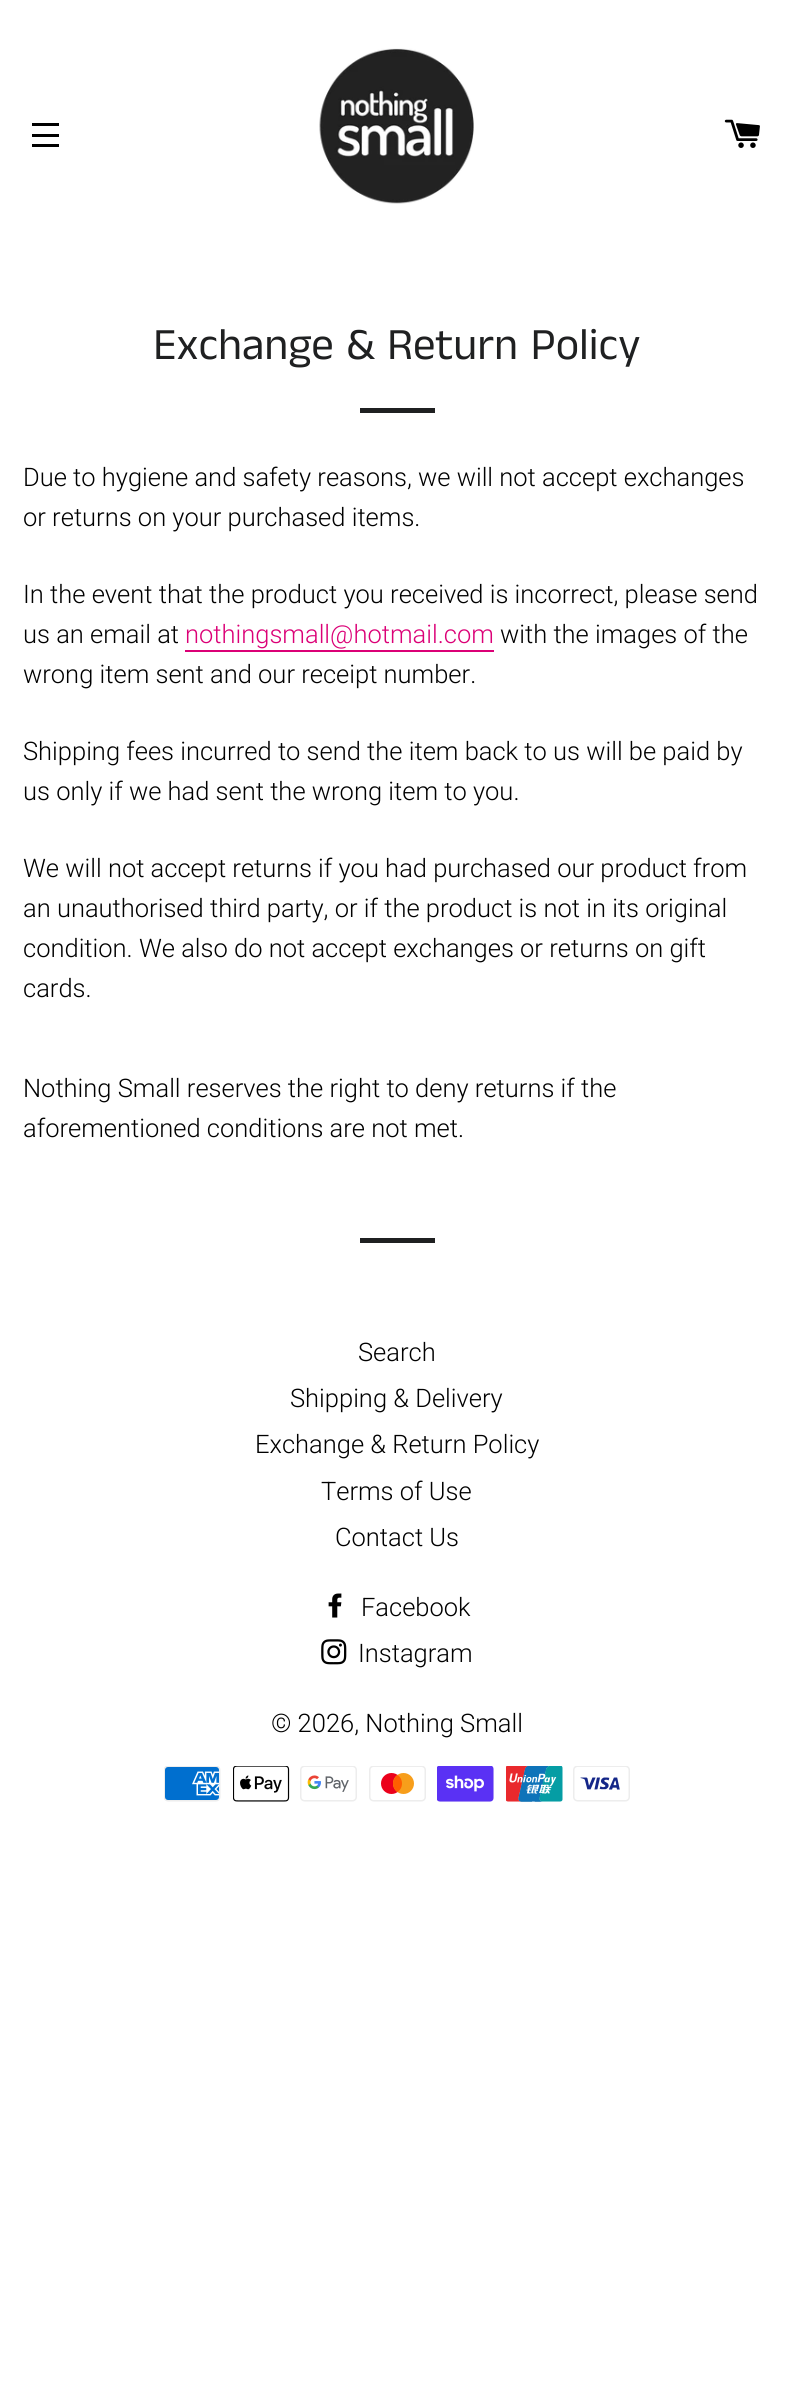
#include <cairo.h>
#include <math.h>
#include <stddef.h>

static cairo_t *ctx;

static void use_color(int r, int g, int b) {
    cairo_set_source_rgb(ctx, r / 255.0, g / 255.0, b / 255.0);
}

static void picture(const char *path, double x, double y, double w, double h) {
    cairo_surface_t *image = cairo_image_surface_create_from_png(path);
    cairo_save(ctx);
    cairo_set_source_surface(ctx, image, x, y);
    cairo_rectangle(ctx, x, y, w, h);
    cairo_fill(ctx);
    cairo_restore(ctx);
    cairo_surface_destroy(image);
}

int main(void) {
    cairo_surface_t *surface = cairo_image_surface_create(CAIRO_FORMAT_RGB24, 793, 2384);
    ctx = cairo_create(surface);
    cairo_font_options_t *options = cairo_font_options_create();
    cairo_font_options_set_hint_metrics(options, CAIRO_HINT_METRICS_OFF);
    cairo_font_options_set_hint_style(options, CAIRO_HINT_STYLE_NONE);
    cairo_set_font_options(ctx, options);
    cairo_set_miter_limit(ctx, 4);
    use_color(255, 255, 255);
    cairo_paint(ctx);
    use_color(0, 0, 0);
    cairo_rectangle(ctx, 32, 123, 27, 3);
    cairo_fill(ctx);
    cairo_rectangle(ctx, 32, 134, 27, 3);
    cairo_fill(ctx);
    cairo_rectangle(ctx, 32, 144, 27, 3);
    cairo_fill(ctx);
    picture("img1.png", 319, 48, 155, 156);
    picture("img2.png", 724, 119, 36, 29);
    cairo_select_font_face(ctx, "Anek Tamil", CAIRO_FONT_SLANT_NORMAL, CAIRO_FONT_WEIGHT_NORMAL);
    cairo_set_font_size(ctx, 45);
    use_color(31, 32, 33);
    cairo_move_to(ctx, 153, 359);
    cairo_show_text(ctx, "Exchange & Return Policy");
    cairo_rectangle(ctx, 360, 408, 75, 5);
    cairo_fill(ctx);
    cairo_select_font_face(ctx, "Roboto Light", CAIRO_FONT_SLANT_NORMAL, CAIRO_FONT_WEIGHT_NORMAL);
    cairo_set_font_size(ctx, 25.5);
    use_color(0, 0, 0);
    cairo_move_to(ctx, 23, 486);
    cairo_show_text(ctx, "Due to hygiene and safety reasons, we will not accept exchanges");
    cairo_move_to(ctx, 23, 526);
    cairo_show_text(ctx, "or returns on your purchased items.");
    cairo_move_to(ctx, 23, 603);
    cairo_show_text(ctx, "In the event that the product you received is incorrect, please send");
    cairo_move_to(ctx, 23, 643);
    cairo_show_text(ctx, "us an email at");
    use_color(219, 0, 118);
    cairo_move_to(ctx, 185, 643);
    cairo_show_text(ctx, "nothingsmall@hotmail.com");
    cairo_rectangle(ctx, 185, 650, 309, 2);
    cairo_fill(ctx);
    use_color(0, 0, 0);
    cairo_move_to(ctx, 500, 643);
    cairo_show_text(ctx, "with the images of the");
    cairo_move_to(ctx, 23, 683);
    cairo_show_text(ctx, "wrong item sent and our receipt number.");
    cairo_move_to(ctx, 23, 760);
    cairo_show_text(ctx, "Shipping fees incurred to send the item back to us will be paid by");
    cairo_move_to(ctx, 23, 800);
    cairo_show_text(ctx, "us only if we had sent the wrong item to you.");
    cairo_move_to(ctx, 23, 877);
    cairo_show_text(ctx, "We will not accept returns if you had purchased our product from");
    cairo_move_to(ctx, 23, 917);
    cairo_show_text(ctx, "an unauthorised third party, or if the product is not in its original");
    cairo_move_to(ctx, 23, 957);
    cairo_show_text(ctx, "condition. We also do not accept exchanges or returns on gift");
    cairo_move_to(ctx, 23, 997);
    cairo_show_text(ctx, "cards.");
    cairo_move_to(ctx, 23, 1097);
    cairo_show_text(ctx, "Nothing Small reserves the right to deny returns if the");
    cairo_move_to(ctx, 23, 1137);
    cairo_show_text(ctx, "aforementioned conditions are not met.");
    use_color(31, 32, 33);
    cairo_rectangle(ctx, 360, 1238, 75, 5);
    cairo_fill(ctx);
    use_color(0, 0, 0);
    cairo_move_to(ctx, 358, 1361);
    cairo_show_text(ctx, "Search");
    cairo_move_to(ctx, 290, 1407);
    cairo_show_text(ctx, "Shipping & Delivery");
    cairo_move_to(ctx, 255, 1453);
    cairo_show_text(ctx, "Exchange & Return Policy");
    cairo_move_to(ctx, 321, 1500);
    cairo_show_text(ctx, "Terms of Use");
    cairo_move_to(ctx, 335, 1546);
    cairo_show_text(ctx, "Contact Us");
    picture("img3.png", 328, 1593, 14, 25);
    cairo_move_to(ctx, 361, 1616);
    cairo_show_text(ctx, "Facebook");
    picture("img4.png", 321, 1639, 26, 26);
    cairo_move_to(ctx, 358, 1662);
    cairo_show_text(ctx, "Instagram");
    cairo_move_to(ctx, 271, 1732);
    cairo_show_text(ctx, "© 2026, Nothing Small");
    picture("img5.png", 164, 1766, 57, 36);
    picture("img6.png", 233, 1766, 57, 36);
    picture("img7.png", 300, 1766, 57, 36);
    picture("img8.png", 369, 1766, 57, 36);
    picture("img9.png", 437, 1766, 57, 36);
    picture("img10.png", 506, 1766, 57, 36);
    picture("img11.png", 573, 1766, 57, 36);
    cairo_surface_write_to_png(surface, "result.png");
    cairo_font_options_destroy(options);
    cairo_destroy(ctx);
    cairo_surface_destroy(surface);
    return 0;
}
